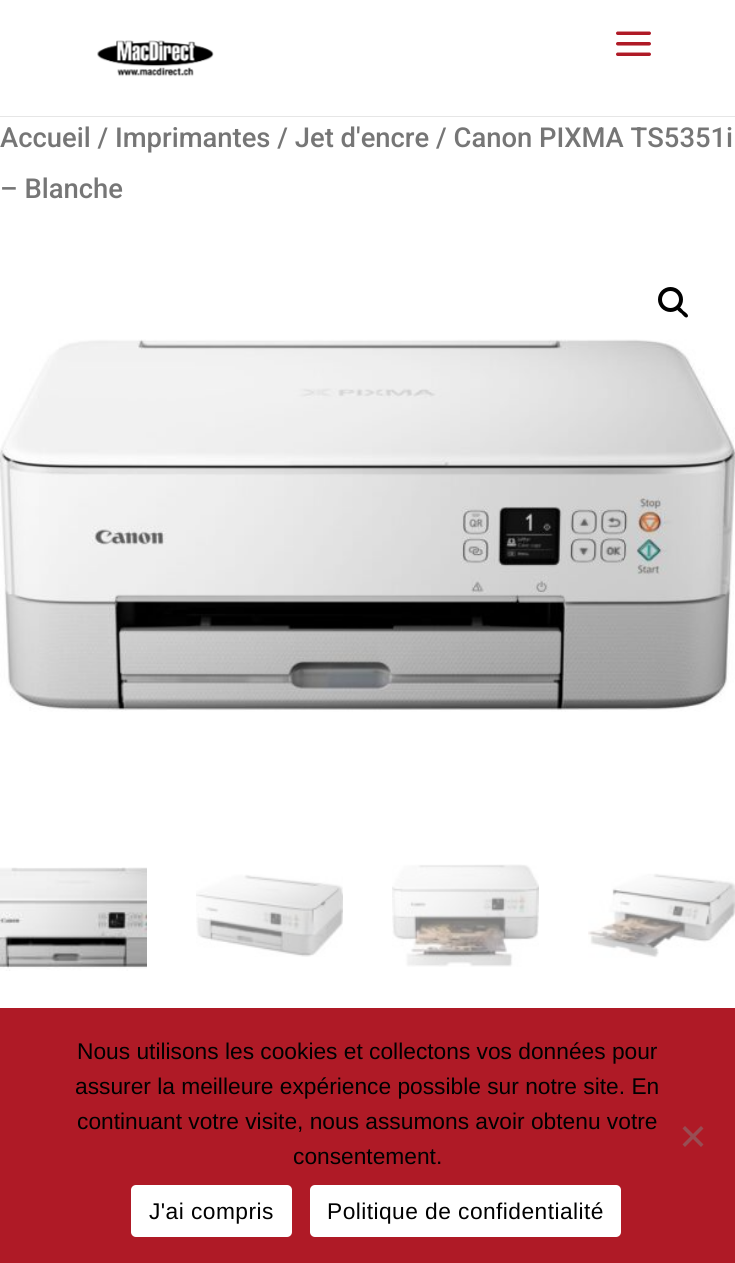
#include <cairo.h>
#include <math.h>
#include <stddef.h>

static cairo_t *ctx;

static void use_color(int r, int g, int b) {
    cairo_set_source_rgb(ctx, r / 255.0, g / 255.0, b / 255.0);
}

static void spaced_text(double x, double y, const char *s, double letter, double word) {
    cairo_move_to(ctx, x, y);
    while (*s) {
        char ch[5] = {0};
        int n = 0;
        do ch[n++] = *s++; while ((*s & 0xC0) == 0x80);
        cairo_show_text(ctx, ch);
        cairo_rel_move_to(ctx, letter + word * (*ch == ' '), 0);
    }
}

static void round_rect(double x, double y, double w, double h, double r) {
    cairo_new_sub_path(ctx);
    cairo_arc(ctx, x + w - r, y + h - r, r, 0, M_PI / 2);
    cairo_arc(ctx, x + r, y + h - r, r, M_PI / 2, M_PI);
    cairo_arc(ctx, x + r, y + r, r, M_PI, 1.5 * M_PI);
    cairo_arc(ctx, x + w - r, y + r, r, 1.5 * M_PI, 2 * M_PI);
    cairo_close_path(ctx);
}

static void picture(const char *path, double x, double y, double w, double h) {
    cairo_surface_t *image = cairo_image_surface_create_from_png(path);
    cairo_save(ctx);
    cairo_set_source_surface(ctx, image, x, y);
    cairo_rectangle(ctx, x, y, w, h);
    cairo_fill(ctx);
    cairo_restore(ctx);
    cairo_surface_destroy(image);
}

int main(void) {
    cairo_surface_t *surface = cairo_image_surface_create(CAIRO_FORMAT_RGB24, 735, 1263);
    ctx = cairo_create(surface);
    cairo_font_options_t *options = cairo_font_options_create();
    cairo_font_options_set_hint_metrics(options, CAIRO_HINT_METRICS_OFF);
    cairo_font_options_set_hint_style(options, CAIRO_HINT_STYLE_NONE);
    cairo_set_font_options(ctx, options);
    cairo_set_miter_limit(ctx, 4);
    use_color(255, 255, 255);
    cairo_paint(ctx);
    use_color(230, 230, 230);
    cairo_rectangle(ctx, 0, 116, 735, 1);
    cairo_fill(ctx);
    picture("img1.png", 97, 40, 117, 37);
    picture("img2.png", 616, 31, 35, 25);
    cairo_select_font_face(ctx, "Roboto Medium", CAIRO_FONT_SLANT_NORMAL, CAIRO_FONT_WEIGHT_NORMAL);
    cairo_set_font_size(ctx, 27.4);
    use_color(118, 118, 118);
    cairo_move_to(ctx, 0, 147);
    cairo_show_text(ctx, "Accueil / Imprimantes / Jet d'encre / Canon PIXMA TS5351i");
    cairo_move_to(ctx, 0, 198);
    cairo_show_text(ctx, "– Blanche");
    cairo_new_path(ctx);
    cairo_arc(ctx, 670.5, 299.5, 10.5, 0, 2 * M_PI);
    use_color(0, 0, 0);
    cairo_set_line_width(ctx, 4);
    cairo_stroke(ctx);
    cairo_new_path(ctx);
    cairo_move_to(ctx, 677.5, 307.5);
    cairo_curve_to(ctx, 679.5, 305.5, 682.5, 310, 683.5, 311);
    cairo_curve_to(ctx, 685, 312, 689.5, 315, 687.5, 317);
    cairo_curve_to(ctx, 685.5, 319, 682.5, 314.5, 681.5, 313.5);
    cairo_curve_to(ctx, 680, 312.5, 675.5, 309.5, 677.5, 307.5);
    cairo_close_path(ctx);
    cairo_fill(ctx);
    picture("img3.png", 0, 339, 735, 373);
    picture("img4.png", 0, 867, 147, 104);
    picture("img5.png", 196, 874, 147, 83);
    picture("img6.png", 392, 864, 147, 103);
    picture("img7.png", 588, 873, 147, 85);
    use_color(175, 26, 38);
    cairo_rectangle(ctx, 0, 1008, 735, 255);
    cairo_fill(ctx);
    cairo_select_font_face(ctx, "Liberation Sans", CAIRO_FONT_SLANT_NORMAL, CAIRO_FONT_WEIGHT_NORMAL);
    cairo_set_font_size(ctx, 22.75);
    use_color(0, 0, 0);
    cairo_move_to(ctx, 77, 1059);
    cairo_show_text(ctx, "Nous utilisons les cookies et collectons vos données pour");
    cairo_move_to(ctx, 75, 1094);
    cairo_show_text(ctx, "assurer la meilleure expérience possible sur notre site. En");
    cairo_move_to(ctx, 77, 1129);
    cairo_show_text(ctx, "continuant votre visite, nous assumons avoir obtenu votre");
    cairo_move_to(ctx, 293, 1164);
    cairo_show_text(ctx, "consentement.");
    use_color(152, 77, 83);
    cairo_new_path(ctx);
    cairo_move_to(ctx, 701, 1126);
    cairo_line_to(ctx, 703.5, 1128.5);
    cairo_line_to(ctx, 685, 1147);
    cairo_line_to(ctx, 682.5, 1144.5);
    cairo_close_path(ctx);
    cairo_fill(ctx);
    cairo_new_path(ctx);
    cairo_move_to(ctx, 682.5, 1128.5);
    cairo_line_to(ctx, 685, 1126);
    cairo_line_to(ctx, 703.5, 1144.5);
    cairo_line_to(ctx, 701, 1147);
    cairo_close_path(ctx);
    cairo_fill(ctx);
    use_color(255, 255, 255);
    round_rect(131, 1185, 161, 52, 5);
    cairo_fill(ctx);
    use_color(0, 0, 0);
    spaced_text(149, 1219, "J'ai compris", 0.45, 0);
    use_color(255, 255, 255);
    round_rect(310, 1185, 311, 52, 5);
    cairo_fill(ctx);
    use_color(0, 0, 0);
    spaced_text(327, 1219, "Politique de confidentialité", 0.45, 0);
    cairo_surface_write_to_png(surface, "result.png");
    cairo_font_options_destroy(options);
    cairo_destroy(ctx);
    cairo_surface_destroy(surface);
    return 0;
}
